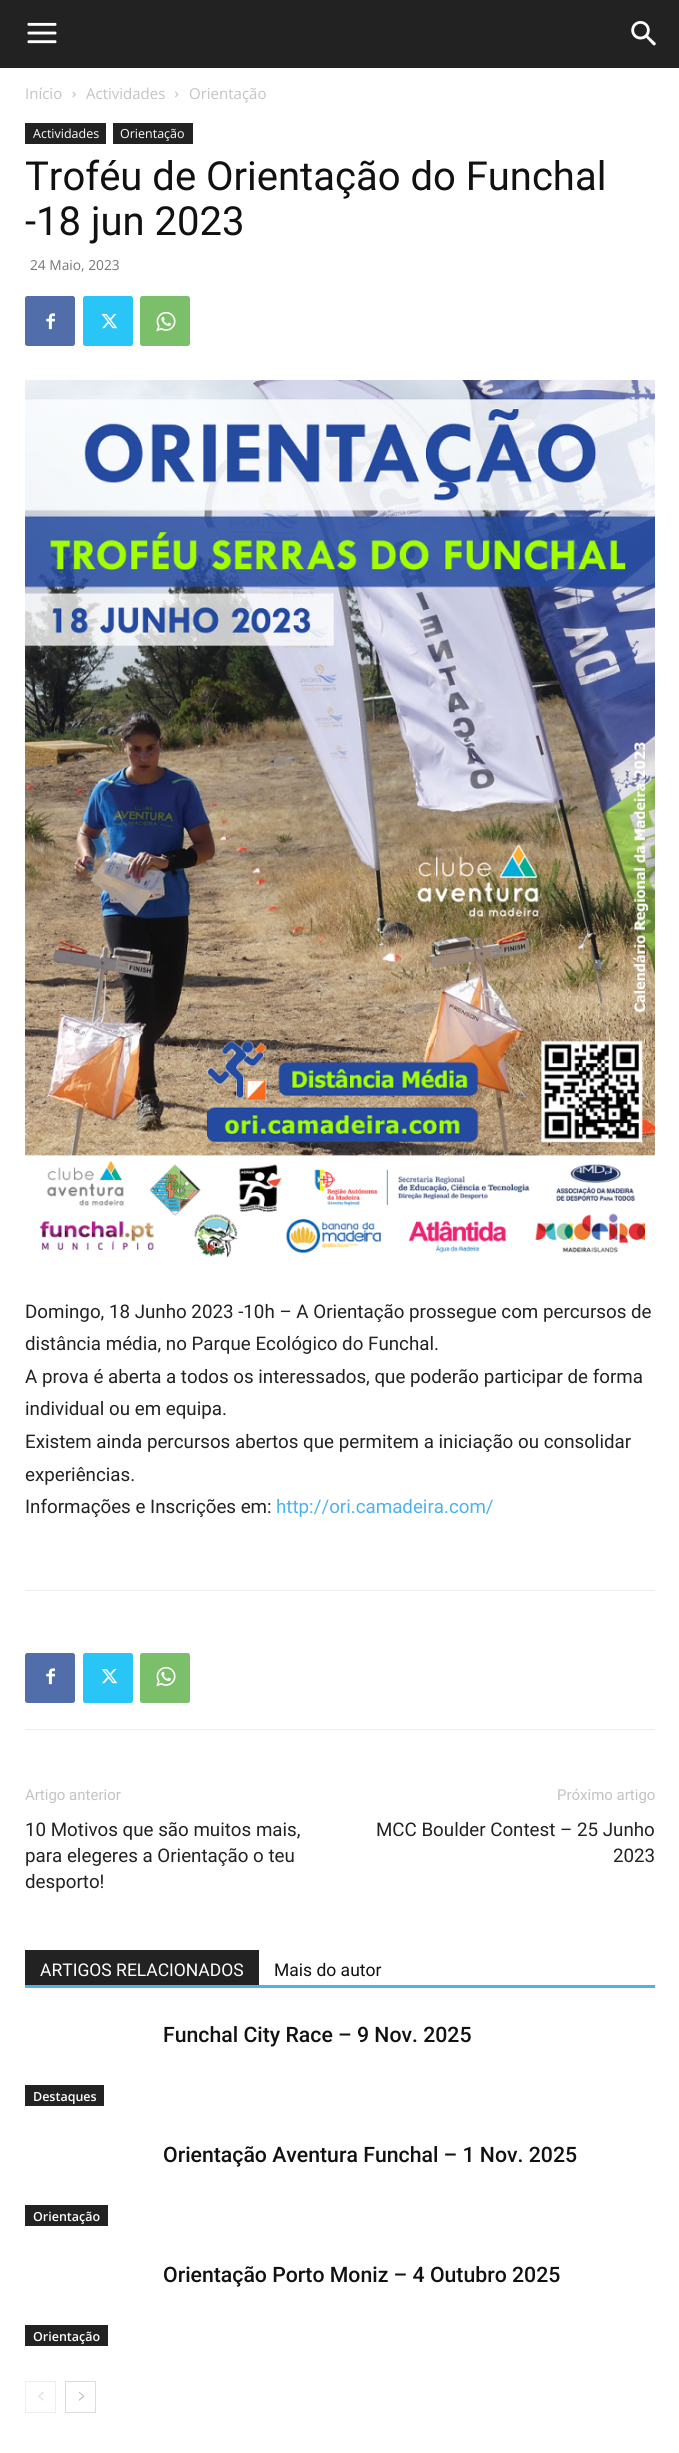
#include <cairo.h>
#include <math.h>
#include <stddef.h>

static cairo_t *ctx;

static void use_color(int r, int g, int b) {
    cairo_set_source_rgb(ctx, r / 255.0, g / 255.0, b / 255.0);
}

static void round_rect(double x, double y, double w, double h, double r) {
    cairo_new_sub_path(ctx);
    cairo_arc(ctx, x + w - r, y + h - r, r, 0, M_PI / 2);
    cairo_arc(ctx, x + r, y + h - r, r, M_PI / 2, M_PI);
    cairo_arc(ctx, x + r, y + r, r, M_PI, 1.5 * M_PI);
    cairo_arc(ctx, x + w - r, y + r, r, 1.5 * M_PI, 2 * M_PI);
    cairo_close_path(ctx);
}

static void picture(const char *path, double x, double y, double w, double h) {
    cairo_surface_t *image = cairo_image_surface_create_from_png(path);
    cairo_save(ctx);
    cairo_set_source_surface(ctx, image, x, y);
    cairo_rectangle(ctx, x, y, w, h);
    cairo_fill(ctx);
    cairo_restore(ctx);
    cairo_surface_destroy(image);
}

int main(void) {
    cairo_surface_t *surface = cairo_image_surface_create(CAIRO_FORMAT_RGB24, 679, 2453);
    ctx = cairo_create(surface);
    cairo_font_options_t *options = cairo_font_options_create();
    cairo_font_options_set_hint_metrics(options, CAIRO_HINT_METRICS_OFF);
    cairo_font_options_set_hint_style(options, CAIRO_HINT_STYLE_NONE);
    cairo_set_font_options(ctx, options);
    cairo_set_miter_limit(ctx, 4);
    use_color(255, 255, 255);
    cairo_paint(ctx);
    use_color(34, 34, 34);
    cairo_rectangle(ctx, 0, 0, 679, 68);
    cairo_fill(ctx);
    picture("img1.png", 27, 22, 30, 22);
    picture("img2.png", 631, 21, 25, 25);
    cairo_select_font_face(ctx, "Open Sans", CAIRO_FONT_SLANT_NORMAL, CAIRO_FONT_WEIGHT_NORMAL);
    cairo_set_font_size(ctx, 15);
    use_color(195, 195, 195);
    cairo_move_to(ctx, 25, 99);
    cairo_show_text(ctx, "Início");
    picture("img3.png", 72, 91, 4, 7);
    cairo_move_to(ctx, 86, 99);
    cairo_show_text(ctx, "Actividades");
    picture("img4.png", 175, 91, 4, 7);
    cairo_move_to(ctx, 189, 99);
    cairo_show_text(ctx, "Orientação");
    use_color(34, 34, 34);
    cairo_rectangle(ctx, 25, 123, 81, 21);
    cairo_fill(ctx);
    cairo_set_font_size(ctx, 12.5);
    use_color(255, 255, 255);
    cairo_move_to(ctx, 33, 138);
    cairo_show_text(ctx, "Actividades");
    use_color(34, 34, 34);
    cairo_rectangle(ctx, 113, 123, 80, 21);
    cairo_fill(ctx);
    use_color(255, 255, 255);
    cairo_move_to(ctx, 120, 138);
    cairo_show_text(ctx, "Orientação");
    cairo_select_font_face(ctx, "Roboto", CAIRO_FONT_SLANT_NORMAL, CAIRO_FONT_WEIGHT_NORMAL);
    cairo_set_font_size(ctx, 40);
    use_color(17, 17, 17);
    cairo_move_to(ctx, 25, 190);
    cairo_show_text(ctx, "Troféu de Orientação do Funchal");
    cairo_move_to(ctx, 25, 235);
    cairo_show_text(ctx, "-18 jun 2023");
    cairo_select_font_face(ctx, "Open Sans", CAIRO_FONT_SLANT_NORMAL, CAIRO_FONT_WEIGHT_NORMAL);
    cairo_set_font_size(ctx, 13.75);
    use_color(118, 118, 118);
    cairo_move_to(ctx, 30, 270);
    cairo_show_text(ctx, "24 Maio, 2023");
    use_color(81, 110, 171);
    round_rect(25, 296, 50, 50, 2.5);
    cairo_fill(ctx);
    picture("img5.png", 46, 313, 9, 17);
    use_color(41, 197, 246);
    round_rect(83, 296, 50, 50, 2.5);
    cairo_fill(ctx);
    picture("img6.png", 101, 314, 17, 15);
    use_color(123, 191, 106);
    round_rect(140, 296, 50, 50, 2.5);
    cairo_fill(ctx);
    picture("img7.png", 156, 311, 20, 21);
    picture("img8.png", 25, 380, 630, 878);
    cairo_select_font_face(ctx, "Roboto", CAIRO_FONT_SLANT_NORMAL, CAIRO_FONT_WEIGHT_NORMAL);
    cairo_set_font_size(ctx, 18.75);
    use_color(34, 34, 34);
    cairo_move_to(ctx, 25, 1318);
    cairo_show_text(ctx, "Domingo, 18 Junho 2023 -10h – A Orientação prossegue com percursos de");
    cairo_move_to(ctx, 25, 1350);
    cairo_show_text(ctx, "distância média, no Parque Ecológico do Funchal.");
    cairo_move_to(ctx, 25, 1383);
    cairo_show_text(ctx, "A prova é aberta a todos os interessados, que poderão participar de forma");
    cairo_move_to(ctx, 25, 1415);
    cairo_show_text(ctx, "individual ou em equipa.");
    cairo_move_to(ctx, 25, 1448);
    cairo_show_text(ctx, "Existem ainda percursos abertos que permitem a iniciação ou consolidar");
    cairo_move_to(ctx, 25, 1481);
    cairo_show_text(ctx, "experiências.");
    cairo_move_to(ctx, 25, 1513);
    cairo_show_text(ctx, "Informações e Inscrições em:");
    use_color(77, 178, 236);
    cairo_move_to(ctx, 276, 1513);
    cairo_show_text(ctx, "http://ori.camadeira.com/");
    use_color(237, 237, 237);
    cairo_rectangle(ctx, 25, 1590, 630, 1);
    cairo_fill(ctx);
    cairo_rectangle(ctx, 25, 1729, 630, 1);
    cairo_fill(ctx);
    use_color(81, 110, 171);
    round_rect(25, 1653, 50, 50, 2.5);
    cairo_fill(ctx);
    picture("img5.png", 46, 1668, 9, 17);
    use_color(41, 197, 246);
    round_rect(83, 1653, 50, 50, 2.5);
    cairo_fill(ctx);
    picture("img6.png", 101, 1669, 17, 15);
    use_color(123, 191, 106);
    round_rect(140, 1653, 50, 50, 2.5);
    cairo_fill(ctx);
    picture("img7.png", 156, 1666, 20, 21);
    cairo_set_font_size(ctx, 15);
    use_color(195, 195, 195);
    cairo_move_to(ctx, 25, 1800);
    cairo_show_text(ctx, "Artigo anterior");
    cairo_set_font_size(ctx, 18.75);
    use_color(34, 34, 34);
    cairo_move_to(ctx, 25, 1836);
    cairo_show_text(ctx, "10 Motivos que são muitos mais,");
    cairo_move_to(ctx, 25, 1862);
    cairo_show_text(ctx, "para elegeres a Orientação o teu");
    cairo_move_to(ctx, 25, 1888);
    cairo_show_text(ctx, "desporto!");
    cairo_set_font_size(ctx, 15);
    use_color(195, 195, 195);
    cairo_move_to(ctx, 557, 1800);
    cairo_show_text(ctx, "Próximo artigo");
    cairo_set_font_size(ctx, 18.75);
    use_color(34, 34, 34);
    cairo_move_to(ctx, 376, 1836);
    cairo_show_text(ctx, "MCC Boulder Contest – 25 Junho");
    cairo_move_to(ctx, 613, 1862);
    cairo_show_text(ctx, "2023");
    use_color(77, 178, 236);
    cairo_rectangle(ctx, 25, 1985, 630, 3);
    cairo_fill(ctx);
    use_color(34, 34, 34);
    cairo_rectangle(ctx, 25, 1950, 234, 35);
    cairo_fill(ctx);
    cairo_set_font_size(ctx, 17.5);
    use_color(255, 255, 255);
    cairo_move_to(ctx, 40, 1976);
    cairo_show_text(ctx, "ARTIGOS RELACIONADOS");
    use_color(17, 17, 17);
    cairo_move_to(ctx, 274, 1976);
    cairo_show_text(ctx, "Mais do autor");
    cairo_select_font_face(ctx, "Roboto Medium", CAIRO_FONT_SLANT_NORMAL, CAIRO_FONT_WEIGHT_NORMAL);
    cairo_set_font_size(ctx, 21.25);
    cairo_move_to(ctx, 163, 2042);
    cairo_show_text(ctx, "Funchal City Race – 9 Nov. 2025");
    use_color(34, 34, 34);
    cairo_rectangle(ctx, 25, 2085, 79, 21);
    cairo_fill(ctx);
    cairo_select_font_face(ctx, "Open Sans SemiBold", CAIRO_FONT_SLANT_NORMAL, CAIRO_FONT_WEIGHT_NORMAL);
    cairo_set_font_size(ctx, 12.5);
    use_color(255, 255, 255);
    cairo_move_to(ctx, 33, 2101);
    cairo_show_text(ctx, "Destaques");
    cairo_select_font_face(ctx, "Roboto Medium", CAIRO_FONT_SLANT_NORMAL, CAIRO_FONT_WEIGHT_NORMAL);
    cairo_set_font_size(ctx, 21.25);
    use_color(17, 17, 17);
    cairo_move_to(ctx, 163, 2162);
    cairo_show_text(ctx, "Orientação Aventura Funchal – 1 Nov. 2025");
    use_color(34, 34, 34);
    cairo_rectangle(ctx, 25, 2205, 83, 21);
    cairo_fill(ctx);
    cairo_select_font_face(ctx, "Open Sans SemiBold", CAIRO_FONT_SLANT_NORMAL, CAIRO_FONT_WEIGHT_NORMAL);
    cairo_set_font_size(ctx, 12.5);
    use_color(255, 255, 255);
    cairo_move_to(ctx, 33, 2221);
    cairo_show_text(ctx, "Orientação");
    cairo_select_font_face(ctx, "Roboto Medium", CAIRO_FONT_SLANT_NORMAL, CAIRO_FONT_WEIGHT_NORMAL);
    cairo_set_font_size(ctx, 21.25);
    use_color(17, 17, 17);
    cairo_move_to(ctx, 163, 2282);
    cairo_show_text(ctx, "Orientação Porto Moniz – 4 Outubro 2025");
    use_color(34, 34, 34);
    cairo_rectangle(ctx, 25, 2325, 83, 21);
    cairo_fill(ctx);
    cairo_select_font_face(ctx, "Open Sans SemiBold", CAIRO_FONT_SLANT_NORMAL, CAIRO_FONT_WEIGHT_NORMAL);
    cairo_set_font_size(ctx, 12.5);
    use_color(255, 255, 255);
    cairo_move_to(ctx, 33, 2341);
    cairo_show_text(ctx, "Orientação");
    cairo_rectangle(ctx, 25.5, 2381.5, 30, 31);
    use_color(238, 238, 238);
    cairo_set_line_width(ctx, 1);
    cairo_stroke(ctx);
    picture("img9.png", 38, 2392, 6, 9);
    cairo_rectangle(ctx, 65.5, 2381.5, 30, 31);
    use_color(220, 220, 220);
    cairo_stroke(ctx);
    picture("img10.png", 78, 2392, 7, 9);
    cairo_surface_write_to_png(surface, "result.png");
    cairo_font_options_destroy(options);
    cairo_destroy(ctx);
    cairo_surface_destroy(surface);
    return 0;
}
